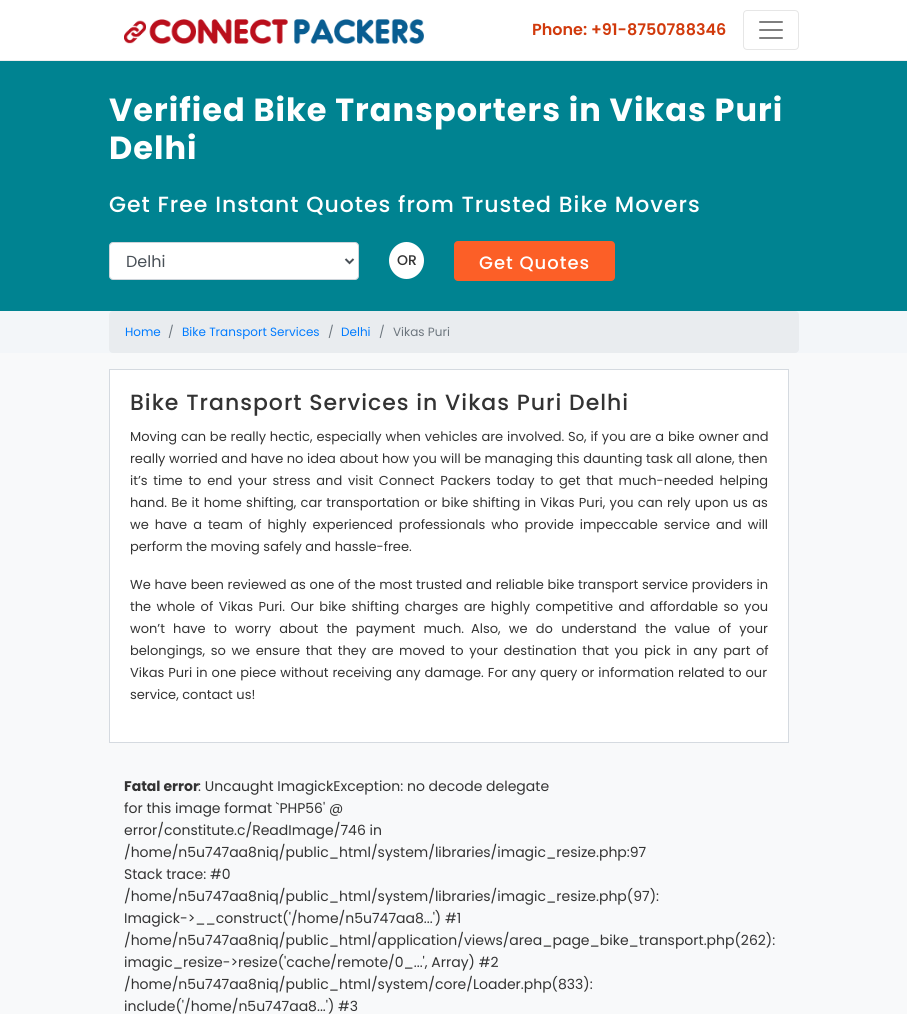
#include <cairo.h>
#include <math.h>
#include <stddef.h>

static cairo_t *ctx;

static void use_color(int r, int g, int b) {
    cairo_set_source_rgb(ctx, r / 255.0, g / 255.0, b / 255.0);
}

static void spaced_text(double x, double y, const char *s, double letter, double word) {
    cairo_move_to(ctx, x, y);
    while (*s) {
        char ch[5] = {0};
        int n = 0;
        do ch[n++] = *s++; while ((*s & 0xC0) == 0x80);
        cairo_show_text(ctx, ch);
        cairo_rel_move_to(ctx, letter + word * (*ch == ' '), 0);
    }
}

static void round_rect(double x, double y, double w, double h, double r) {
    cairo_new_sub_path(ctx);
    cairo_arc(ctx, x + w - r, y + h - r, r, 0, M_PI / 2);
    cairo_arc(ctx, x + r, y + h - r, r, M_PI / 2, M_PI);
    cairo_arc(ctx, x + r, y + r, r, M_PI, 1.5 * M_PI);
    cairo_arc(ctx, x + w - r, y + r, r, 1.5 * M_PI, 2 * M_PI);
    cairo_close_path(ctx);
}

static void picture(const char *path, double x, double y, double w, double h) {
    cairo_surface_t *image = cairo_image_surface_create_from_png(path);
    cairo_save(ctx);
    cairo_set_source_surface(ctx, image, x, y);
    cairo_rectangle(ctx, x, y, w, h);
    cairo_fill(ctx);
    cairo_restore(ctx);
    cairo_surface_destroy(image);
}

int main(void) {
    cairo_surface_t *surface = cairo_image_surface_create(CAIRO_FORMAT_RGB24, 907, 1014);
    ctx = cairo_create(surface);
    cairo_font_options_t *options = cairo_font_options_create();
    cairo_font_options_set_hint_metrics(options, CAIRO_HINT_METRICS_OFF);
    cairo_font_options_set_hint_style(options, CAIRO_HINT_STYLE_NONE);
    cairo_set_font_options(ctx, options);
    cairo_set_miter_limit(ctx, 4);
    use_color(248, 249, 250);
    cairo_paint(ctx);
    use_color(255, 255, 255);
    cairo_rectangle(ctx, 0, 0, 907, 60);
    cairo_fill(ctx);
    use_color(238, 238, 238);
    cairo_rectangle(ctx, 0, 60, 907, 1);
    cairo_fill(ctx);
    picture("img1.png", 124, 19, 300, 25);
    cairo_select_font_face(ctx, "Poppins SemiBold", CAIRO_FONT_SLANT_NORMAL, CAIRO_FONT_WEIGHT_NORMAL);
    cairo_set_font_size(ctx, 16);
    use_color(209, 58, 12);
    cairo_move_to(ctx, 532, 35);
    cairo_show_text(ctx, "Phone: +91-8750788346");
    round_rect(743.5, 10.5, 55, 39, 3.5);
    use_color(230, 230, 230);
    cairo_set_line_width(ctx, 1);
    cairo_stroke(ctx);
    picture("img2.png", 759, 21, 24, 18);
    use_color(0, 131, 145);
    cairo_rectangle(ctx, 0, 61, 907, 250);
    cairo_fill(ctx);
    cairo_select_font_face(ctx, "Poppins", CAIRO_FONT_SLANT_NORMAL, CAIRO_FONT_WEIGHT_BOLD);
    cairo_set_font_size(ctx, 32);
    use_color(255, 255, 255);
    spaced_text(109, 121, "Verified Bike Transporters in Vikas Puri", 1, 0);
    spaced_text(109, 159, "Delhi", 1, 0);
    cairo_select_font_face(ctx, "Poppins Medium", CAIRO_FONT_SLANT_NORMAL, CAIRO_FONT_WEIGHT_NORMAL);
    cairo_set_font_size(ctx, 22);
    spaced_text(109, 212, "Get Free Instant Quotes from Trusted Bike Movers", 1, 0);
    round_rect(109.5, 242.5, 249, 37, 3.5);
    cairo_fill_preserve(ctx);
    use_color(206, 212, 218);
    cairo_stroke(ctx);
    cairo_new_path(ctx);
    cairo_move_to(ctx, 345.5, 259);
    cairo_line_to(ctx, 349.5, 263);
    cairo_line_to(ctx, 353.5, 259);
    use_color(73, 80, 87);
    cairo_set_line_width(ctx, 2);
    cairo_stroke(ctx);
    cairo_select_font_face(ctx, "Poppins", CAIRO_FONT_SLANT_NORMAL, CAIRO_FONT_WEIGHT_NORMAL);
    cairo_set_font_size(ctx, 16);
    cairo_move_to(ctx, 126, 267);
    cairo_show_text(ctx, "Delhi");
    use_color(255, 255, 255);
    cairo_new_path(ctx);
    cairo_move_to(ctx, 406.5, 242);
    cairo_curve_to(ctx, 416, 242, 424, 250.5, 424, 260.5);
    cairo_curve_to(ctx, 424, 270.5, 416, 279, 406.5, 279);
    cairo_curve_to(ctx, 397, 279, 389, 270.5, 389, 260.5);
    cairo_curve_to(ctx, 389, 250.5, 397, 242, 406.5, 242);
    cairo_close_path(ctx);
    cairo_fill(ctx);
    cairo_select_font_face(ctx, "Poppins Medium", CAIRO_FONT_SLANT_NORMAL, CAIRO_FONT_WEIGHT_NORMAL);
    cairo_set_font_size(ctx, 14);
    use_color(51, 51, 51);
    cairo_move_to(ctx, 397, 265);
    cairo_show_text(ctx, "OR");
    use_color(252, 95, 39);
    round_rect(454, 241, 161, 40, 4);
    cairo_fill(ctx);
    cairo_set_font_size(ctx, 18);
    use_color(255, 255, 255);
    spaced_text(479, 269, "Get Quotes", 1, 0);
    use_color(243, 246, 249);
    cairo_rectangle(ctx, 0, 311, 907, 42);
    cairo_fill(ctx);
    use_color(233, 236, 239);
    round_rect(109, 311, 690, 42, 4);
    cairo_fill(ctx);
    cairo_select_font_face(ctx, "Poppins", CAIRO_FONT_SLANT_NORMAL, CAIRO_FONT_WEIGHT_NORMAL);
    cairo_set_font_size(ctx, 12);
    use_color(0, 123, 255);
    cairo_move_to(ctx, 125, 336);
    cairo_show_text(ctx, "Home");
    use_color(108, 117, 125);
    cairo_move_to(ctx, 168, 336);
    cairo_show_text(ctx, "/");
    use_color(0, 123, 255);
    cairo_move_to(ctx, 182, 336);
    cairo_show_text(ctx, "Bike Transport Services");
    use_color(108, 117, 125);
    cairo_move_to(ctx, 328, 336);
    cairo_show_text(ctx, "/");
    use_color(0, 123, 255);
    cairo_move_to(ctx, 341, 336);
    cairo_show_text(ctx, "Delhi");
    use_color(108, 117, 125);
    cairo_move_to(ctx, 379, 336);
    cairo_show_text(ctx, "/");
    cairo_move_to(ctx, 393, 336);
    cairo_show_text(ctx, "Vikas Puri");
    use_color(255, 255, 255);
    cairo_rectangle(ctx, 109.5, 369.5, 679, 373);
    cairo_fill_preserve(ctx);
    use_color(213, 218, 224);
    cairo_set_line_width(ctx, 1);
    cairo_stroke(ctx);
    cairo_select_font_face(ctx, "Poppins Medium", CAIRO_FONT_SLANT_NORMAL, CAIRO_FONT_WEIGHT_NORMAL);
    cairo_set_font_size(ctx, 22);
    use_color(51, 51, 51);
    spaced_text(130, 410, "Bike Transport Services in Vikas Puri Delhi", 1, 0);
    cairo_select_font_face(ctx, "Poppins", CAIRO_FONT_SLANT_NORMAL, CAIRO_FONT_WEIGHT_NORMAL);
    cairo_set_font_size(ctx, 13);
    spaced_text(130, 441, "Moving can be really hectic, especially when vehicles are involved. So, if you are a bike owner and", 0, 0.4);
    spaced_text(130, 463, "really worried and have no idea about how you will be managing this daunting task all alone, then", 0, 0.1);
    spaced_text(130, 485, "it’s time to end your stress and visit Connect Packers today to get that much-needed helping", 0, 2.25);
    spaced_text(130, 507, "hand. Be it home shifting, car transportation or bike shifting in Vikas Puri, you can rely upon us as", 0, 0.8);
    spaced_text(130, 529, "we have a team of highly experienced professionals who provide impeccable service and will", 0, 2.5);
    cairo_move_to(ctx, 130, 551);
    cairo_show_text(ctx, "perform the moving safely and hassle-free.");
    spaced_text(130, 589, "We have been reviewed as one of the most trusted and reliable bike transport service providers in", 0, 0.25);
    spaced_text(130, 611, "the whole of Vikas Puri. Our bike shifting charges are highly competitive and affordable so you", 0, 2);
    spaced_text(130, 633, "won’t have to worry about the payment much.", 0, 4.75);
    spaced_text(471, 633, "Also, we do understand the value of your", 0, 4.75);
    spaced_text(130, 655, "belongings, so we ensure that they are moved to your destination that you pick in any part of", 0, 2.1);
    spaced_text(130, 677, "Vikas Puri in one piece without receiving any damage. For any query or information related to our", 0, 0.5);
    cairo_move_to(ctx, 130, 699);
    cairo_show_text(ctx, "service, contact us!");
    cairo_select_font_face(ctx, "Poppins", CAIRO_FONT_SLANT_NORMAL, CAIRO_FONT_WEIGHT_BOLD);
    cairo_set_font_size(ctx, 14);
    cairo_move_to(ctx, 124, 791);
    cairo_show_text(ctx, "Fatal error");
    cairo_select_font_face(ctx, "Poppins", CAIRO_FONT_SLANT_NORMAL, CAIRO_FONT_WEIGHT_NORMAL);
    cairo_move_to(ctx, 198, 791);
    cairo_show_text(ctx, ": Uncaught ImagickException: no decode delegate");
    cairo_move_to(ctx, 124, 813);
    cairo_show_text(ctx, "for this image format `PHP56' @");
    cairo_move_to(ctx, 124, 835);
    cairo_show_text(ctx, "error/constitute.c/ReadImage/746 in");
    cairo_move_to(ctx, 124, 857);
    cairo_show_text(ctx, "/home/n5u747aa8niq/public_html/system/libraries/imagic_resize.php:97");
    cairo_move_to(ctx, 124, 879);
    cairo_show_text(ctx, "Stack trace: #0");
    cairo_move_to(ctx, 124, 901);
    cairo_show_text(ctx, "/home/n5u747aa8niq/public_html/system/libraries/imagic_resize.php(97):");
    cairo_move_to(ctx, 124, 923);
    cairo_show_text(ctx, "Imagick->__construct('/home/n5u747aa8...') #1");
    cairo_move_to(ctx, 124, 945);
    cairo_show_text(ctx, "/home/n5u747aa8niq/public_html/application/views/area_page_bike_transport.php(262):");
    cairo_move_to(ctx, 124, 967);
    cairo_show_text(ctx, "imagic_resize->resize('cache/remote/0_...', Array) #2");
    cairo_move_to(ctx, 124, 989);
    cairo_show_text(ctx, "/home/n5u747aa8niq/public_html/system/core/Loader.php(833):");
    cairo_move_to(ctx, 124, 1011);
    cairo_show_text(ctx, "include('/home/n5u747aa8...') #3");
    cairo_surface_write_to_png(surface, "result.png");
    cairo_font_options_destroy(options);
    cairo_destroy(ctx);
    cairo_surface_destroy(surface);
    return 0;
}
